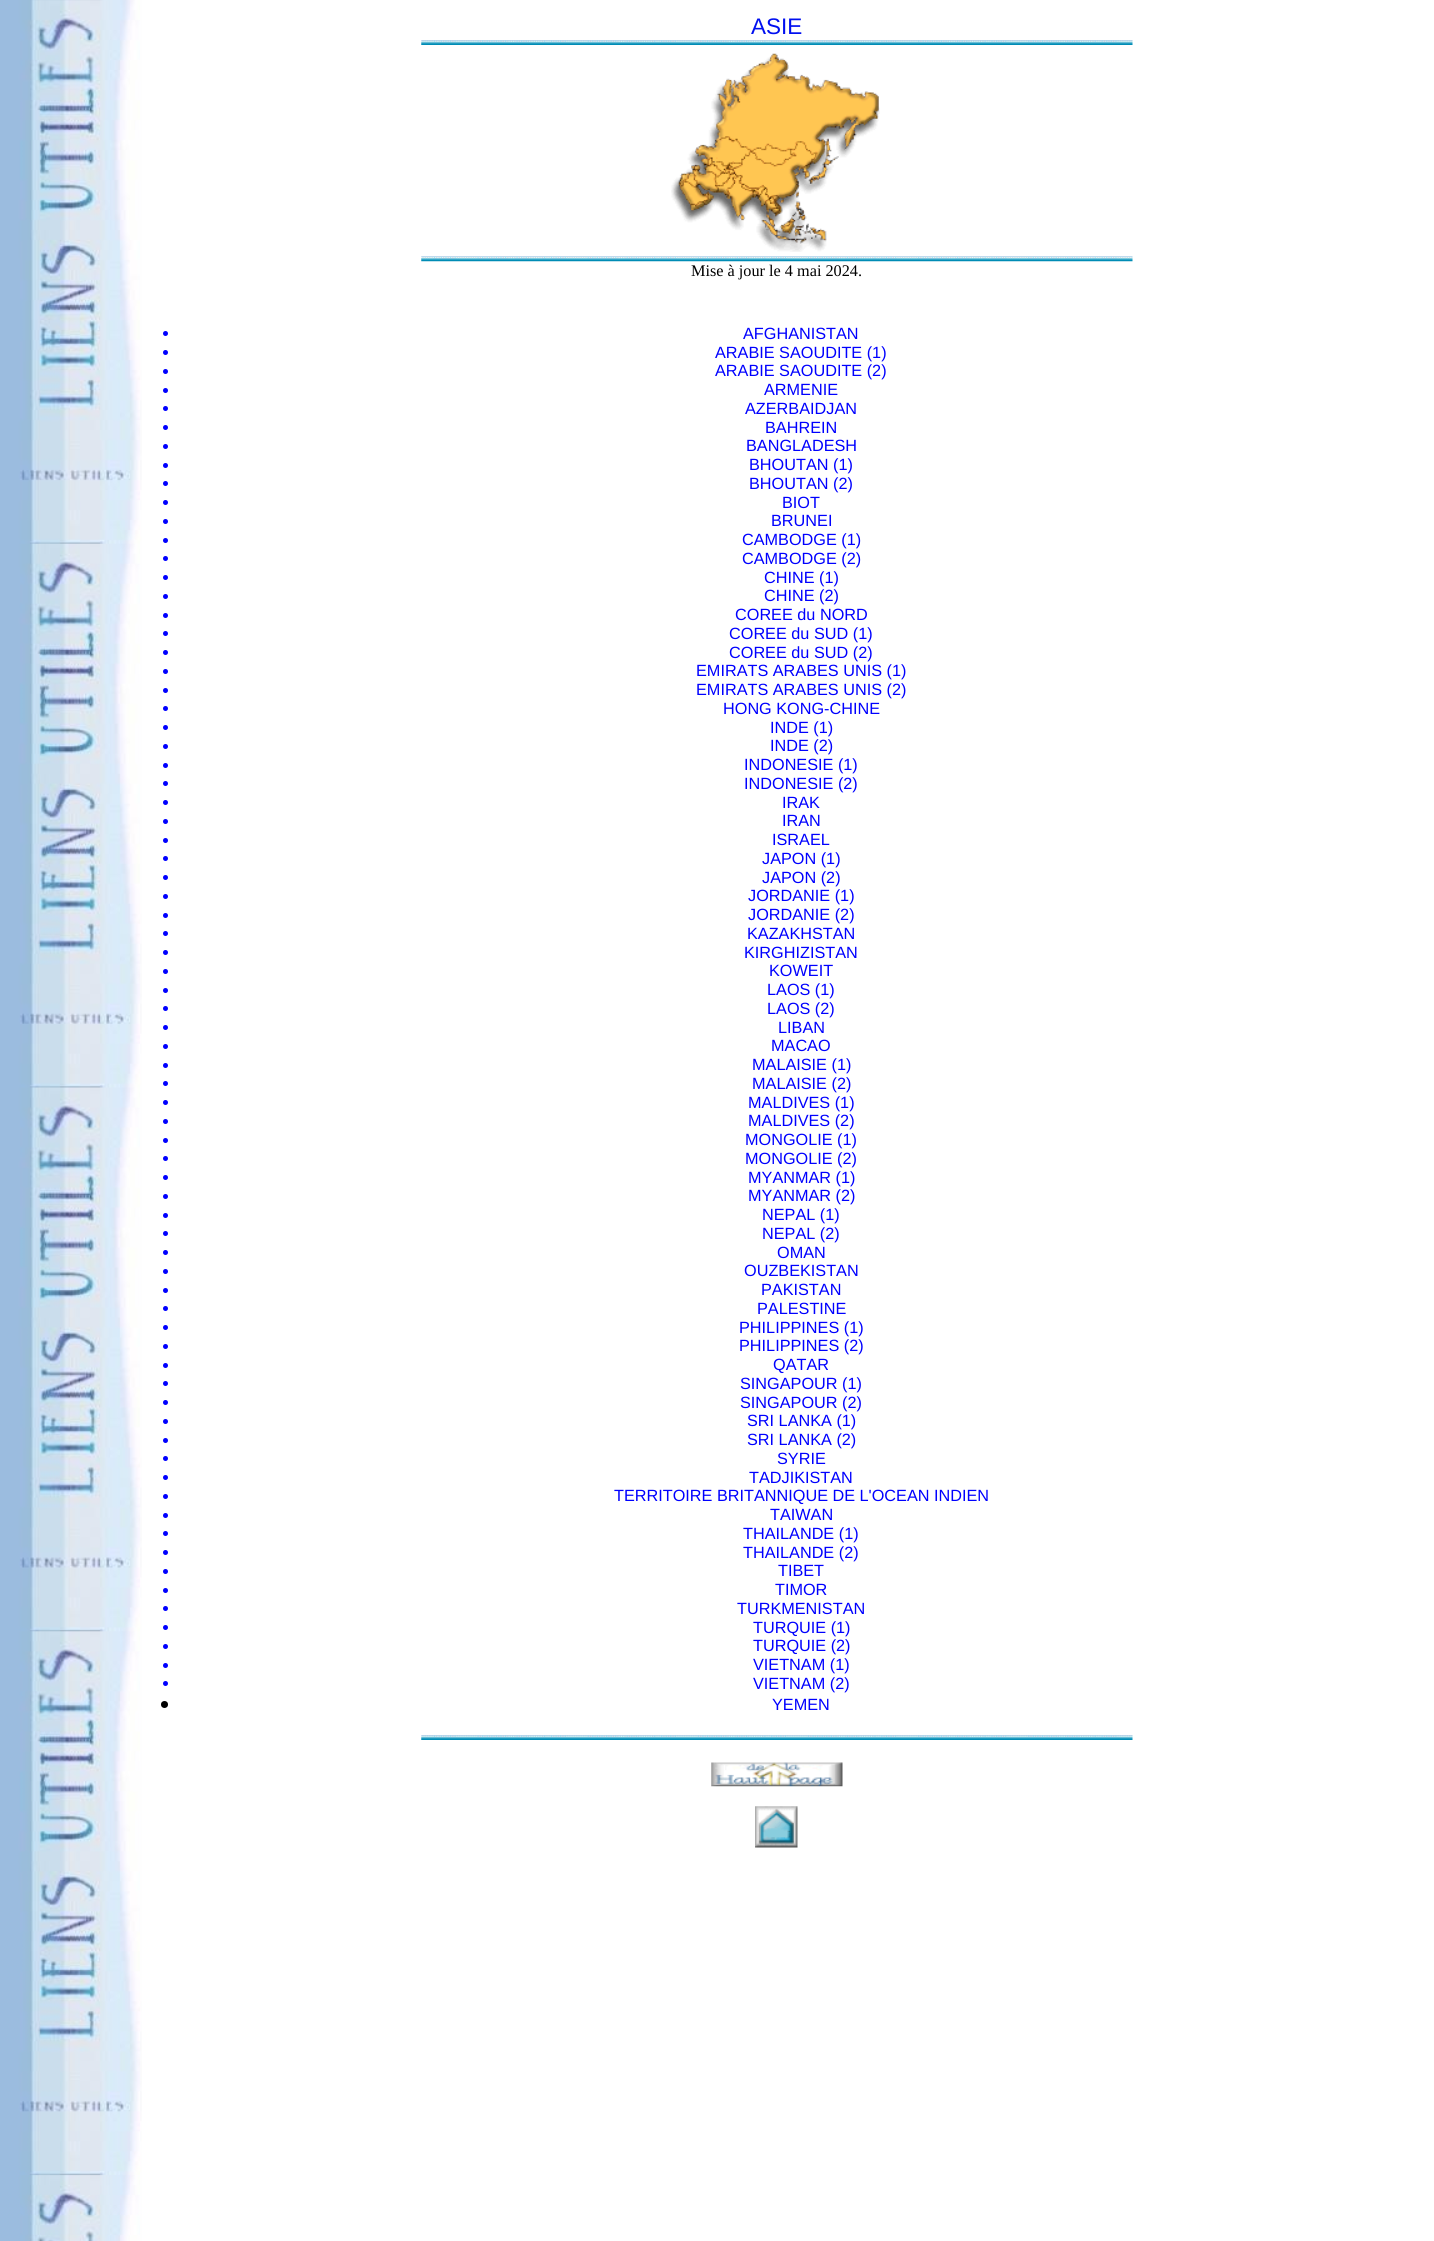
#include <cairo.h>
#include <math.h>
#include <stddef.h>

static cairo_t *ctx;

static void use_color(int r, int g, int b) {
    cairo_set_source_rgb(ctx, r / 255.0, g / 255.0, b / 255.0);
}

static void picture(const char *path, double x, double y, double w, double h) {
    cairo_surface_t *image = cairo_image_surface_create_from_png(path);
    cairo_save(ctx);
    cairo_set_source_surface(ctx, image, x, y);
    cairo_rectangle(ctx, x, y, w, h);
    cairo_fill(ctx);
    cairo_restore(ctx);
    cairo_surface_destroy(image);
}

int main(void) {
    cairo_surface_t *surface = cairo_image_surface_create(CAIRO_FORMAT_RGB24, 1434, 2241);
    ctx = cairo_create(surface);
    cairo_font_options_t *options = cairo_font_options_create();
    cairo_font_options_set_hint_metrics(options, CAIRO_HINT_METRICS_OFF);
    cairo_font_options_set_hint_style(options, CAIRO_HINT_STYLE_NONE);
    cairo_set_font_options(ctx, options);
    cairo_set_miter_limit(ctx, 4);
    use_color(255, 255, 255);
    cairo_paint(ctx);
    picture("img1.png", 0, 0, 142, 2241);
    cairo_select_font_face(ctx, "Liberation Sans", CAIRO_FONT_SLANT_NORMAL, CAIRO_FONT_WEIGHT_NORMAL);
    cairo_set_font_size(ctx, 22.5);
    use_color(0, 15, 240);
    cairo_move_to(ctx, 751, 34);
    cairo_show_text(ctx, "ASIE");
    picture("img2.png", 421, 40, 712, 5);
    picture("img3.png", 671, 53, 209, 199);
    picture("img4.png", 421, 256, 712, 6);
    cairo_select_font_face(ctx, "Liberation Serif", CAIRO_FONT_SLANT_NORMAL, CAIRO_FONT_WEIGHT_NORMAL);
    cairo_set_font_size(ctx, 16.25);
    use_color(0, 0, 0);
    cairo_move_to(ctx, 691, 276);
    cairo_show_text(ctx, "Mise à jour le 4 mai 2024.");
    use_color(0, 0, 255);
    cairo_new_path(ctx);
    cairo_arc(ctx, 165.5, 333.5, 2.5, 0, 2 * M_PI);
    cairo_fill(ctx);
    cairo_select_font_face(ctx, "Liberation Sans", CAIRO_FONT_SLANT_NORMAL, CAIRO_FONT_WEIGHT_NORMAL);
    cairo_move_to(ctx, 743, 339);
    cairo_show_text(ctx, "AFGHANISTAN");
    cairo_new_path(ctx);
    cairo_arc(ctx, 165.5, 352.5, 2.5, 0, 2 * M_PI);
    cairo_fill(ctx);
    cairo_move_to(ctx, 715, 358);
    cairo_show_text(ctx, "ARABIE SAOUDITE (1)");
    cairo_new_path(ctx);
    cairo_arc(ctx, 165.5, 371.5, 2.5, 0, 2 * M_PI);
    cairo_fill(ctx);
    cairo_move_to(ctx, 715, 376);
    cairo_show_text(ctx, "ARABIE SAOUDITE (2)");
    cairo_new_path(ctx);
    cairo_arc(ctx, 165.5, 390.5, 2.5, 0, 2 * M_PI);
    cairo_fill(ctx);
    cairo_move_to(ctx, 764, 395);
    cairo_show_text(ctx, "ARMENIE");
    cairo_new_path(ctx);
    cairo_arc(ctx, 165.5, 408.5, 2.5, 0, 2 * M_PI);
    cairo_fill(ctx);
    cairo_move_to(ctx, 745, 414);
    cairo_show_text(ctx, "AZERBAIDJAN");
    cairo_new_path(ctx);
    cairo_arc(ctx, 165.5, 427.5, 2.5, 0, 2 * M_PI);
    cairo_fill(ctx);
    cairo_move_to(ctx, 765, 433);
    cairo_show_text(ctx, "BAHREIN");
    cairo_new_path(ctx);
    cairo_arc(ctx, 165.5, 446.5, 2.5, 0, 2 * M_PI);
    cairo_fill(ctx);
    cairo_move_to(ctx, 746, 451);
    cairo_show_text(ctx, "BANGLADESH");
    cairo_new_path(ctx);
    cairo_arc(ctx, 165.5, 465.5, 2.5, 0, 2 * M_PI);
    cairo_fill(ctx);
    cairo_move_to(ctx, 749, 470);
    cairo_show_text(ctx, "BHOUTAN (1)");
    cairo_new_path(ctx);
    cairo_arc(ctx, 165.5, 483.5, 2.5, 0, 2 * M_PI);
    cairo_fill(ctx);
    cairo_move_to(ctx, 749, 489);
    cairo_show_text(ctx, "BHOUTAN (2)");
    cairo_new_path(ctx);
    cairo_arc(ctx, 165.5, 502.5, 2.5, 0, 2 * M_PI);
    cairo_fill(ctx);
    cairo_move_to(ctx, 782, 508);
    cairo_show_text(ctx, "BIOT");
    cairo_new_path(ctx);
    cairo_arc(ctx, 165.5, 521.5, 2.5, 0, 2 * M_PI);
    cairo_fill(ctx);
    cairo_move_to(ctx, 771, 526);
    cairo_show_text(ctx, "BRUNEI");
    cairo_new_path(ctx);
    cairo_arc(ctx, 165.5, 540.5, 2.5, 0, 2 * M_PI);
    cairo_fill(ctx);
    cairo_move_to(ctx, 742, 545);
    cairo_show_text(ctx, "CAMBODGE (1)");
    cairo_new_path(ctx);
    cairo_arc(ctx, 165.5, 558.5, 2.5, 0, 2 * M_PI);
    cairo_fill(ctx);
    cairo_move_to(ctx, 742, 564);
    cairo_show_text(ctx, "CAMBODGE (2)");
    cairo_new_path(ctx);
    cairo_arc(ctx, 165.5, 577.5, 2.5, 0, 2 * M_PI);
    cairo_fill(ctx);
    cairo_move_to(ctx, 764, 583);
    cairo_show_text(ctx, "CHINE (1)");
    cairo_new_path(ctx);
    cairo_arc(ctx, 165.5, 596.5, 2.5, 0, 2 * M_PI);
    cairo_fill(ctx);
    cairo_move_to(ctx, 764, 601);
    cairo_show_text(ctx, "CHINE (2)");
    cairo_new_path(ctx);
    cairo_arc(ctx, 165.5, 615.5, 2.5, 0, 2 * M_PI);
    cairo_fill(ctx);
    cairo_move_to(ctx, 735, 620);
    cairo_show_text(ctx, "COREE du NORD");
    cairo_new_path(ctx);
    cairo_arc(ctx, 165.5, 633.5, 2.5, 0, 2 * M_PI);
    cairo_fill(ctx);
    cairo_move_to(ctx, 729, 639);
    cairo_show_text(ctx, "COREE du SUD (1)");
    cairo_new_path(ctx);
    cairo_arc(ctx, 165.5, 652.5, 2.5, 0, 2 * M_PI);
    cairo_fill(ctx);
    cairo_move_to(ctx, 729, 658);
    cairo_show_text(ctx, "COREE du SUD (2)");
    cairo_new_path(ctx);
    cairo_arc(ctx, 165.5, 671.5, 2.5, 0, 2 * M_PI);
    cairo_fill(ctx);
    cairo_move_to(ctx, 696, 676);
    cairo_show_text(ctx, "EMIRATS ARABES UNIS (1)");
    cairo_new_path(ctx);
    cairo_arc(ctx, 165.5, 690.5, 2.5, 0, 2 * M_PI);
    cairo_fill(ctx);
    cairo_move_to(ctx, 696, 695);
    cairo_show_text(ctx, "EMIRATS ARABES UNIS (2)");
    cairo_new_path(ctx);
    cairo_arc(ctx, 165.5, 708.5, 2.5, 0, 2 * M_PI);
    cairo_fill(ctx);
    cairo_move_to(ctx, 723, 714);
    cairo_show_text(ctx, "HONG KONG-CHINE");
    cairo_new_path(ctx);
    cairo_arc(ctx, 165.5, 727.5, 2.5, 0, 2 * M_PI);
    cairo_fill(ctx);
    cairo_move_to(ctx, 770, 733);
    cairo_show_text(ctx, "INDE (1)");
    cairo_new_path(ctx);
    cairo_arc(ctx, 165.5, 746.5, 2.5, 0, 2 * M_PI);
    cairo_fill(ctx);
    cairo_move_to(ctx, 770, 751);
    cairo_show_text(ctx, "INDE (2)");
    cairo_new_path(ctx);
    cairo_arc(ctx, 165.5, 765.5, 2.5, 0, 2 * M_PI);
    cairo_fill(ctx);
    cairo_move_to(ctx, 744, 770);
    cairo_show_text(ctx, "INDONESIE (1)");
    cairo_new_path(ctx);
    cairo_arc(ctx, 165.5, 783.5, 2.5, 0, 2 * M_PI);
    cairo_fill(ctx);
    cairo_move_to(ctx, 744, 789);
    cairo_show_text(ctx, "INDONESIE (2)");
    cairo_new_path(ctx);
    cairo_arc(ctx, 165.5, 802.5, 2.5, 0, 2 * M_PI);
    cairo_fill(ctx);
    cairo_move_to(ctx, 782, 808);
    cairo_show_text(ctx, "IRAK");
    cairo_new_path(ctx);
    cairo_arc(ctx, 165.5, 821.5, 2.5, 0, 2 * M_PI);
    cairo_fill(ctx);
    cairo_move_to(ctx, 782, 826);
    cairo_show_text(ctx, "IRAN");
    cairo_new_path(ctx);
    cairo_arc(ctx, 165.5, 840.5, 2.5, 0, 2 * M_PI);
    cairo_fill(ctx);
    cairo_move_to(ctx, 772, 845);
    cairo_show_text(ctx, "ISRAEL");
    cairo_new_path(ctx);
    cairo_arc(ctx, 165.5, 858.5, 2.5, 0, 2 * M_PI);
    cairo_fill(ctx);
    cairo_move_to(ctx, 762, 864);
    cairo_show_text(ctx, "JAPON (1)");
    cairo_new_path(ctx);
    cairo_arc(ctx, 165.5, 877.5, 2.5, 0, 2 * M_PI);
    cairo_fill(ctx);
    cairo_move_to(ctx, 762, 883);
    cairo_show_text(ctx, "JAPON (2)");
    cairo_new_path(ctx);
    cairo_arc(ctx, 165.5, 896.5, 2.5, 0, 2 * M_PI);
    cairo_fill(ctx);
    cairo_move_to(ctx, 748, 901);
    cairo_show_text(ctx, "JORDANIE (1)");
    cairo_new_path(ctx);
    cairo_arc(ctx, 165.5, 915.5, 2.5, 0, 2 * M_PI);
    cairo_fill(ctx);
    cairo_move_to(ctx, 748, 920);
    cairo_show_text(ctx, "JORDANIE (2)");
    cairo_new_path(ctx);
    cairo_arc(ctx, 165.5, 933.5, 2.5, 0, 2 * M_PI);
    cairo_fill(ctx);
    cairo_move_to(ctx, 747, 939);
    cairo_show_text(ctx, "KAZAKHSTAN");
    cairo_new_path(ctx);
    cairo_arc(ctx, 165.5, 952.5, 2.5, 0, 2 * M_PI);
    cairo_fill(ctx);
    cairo_move_to(ctx, 744, 958);
    cairo_show_text(ctx, "KIRGHIZISTAN");
    cairo_new_path(ctx);
    cairo_arc(ctx, 165.5, 971.5, 2.5, 0, 2 * M_PI);
    cairo_fill(ctx);
    cairo_move_to(ctx, 769, 976);
    cairo_show_text(ctx, "KOWEIT");
    cairo_new_path(ctx);
    cairo_arc(ctx, 165.5, 990.5, 2.5, 0, 2 * M_PI);
    cairo_fill(ctx);
    cairo_move_to(ctx, 767, 995);
    cairo_show_text(ctx, "LAOS (1)");
    cairo_new_path(ctx);
    cairo_arc(ctx, 165.5, 1008.5, 2.5, 0, 2 * M_PI);
    cairo_fill(ctx);
    cairo_move_to(ctx, 767, 1014);
    cairo_show_text(ctx, "LAOS (2)");
    cairo_new_path(ctx);
    cairo_arc(ctx, 165.5, 1027.5, 2.5, 0, 2 * M_PI);
    cairo_fill(ctx);
    cairo_move_to(ctx, 778, 1033);
    cairo_show_text(ctx, "LIBAN");
    cairo_new_path(ctx);
    cairo_arc(ctx, 165.5, 1046.5, 2.5, 0, 2 * M_PI);
    cairo_fill(ctx);
    cairo_move_to(ctx, 771, 1051);
    cairo_show_text(ctx, "MACAO");
    cairo_new_path(ctx);
    cairo_arc(ctx, 165.5, 1065.5, 2.5, 0, 2 * M_PI);
    cairo_fill(ctx);
    cairo_move_to(ctx, 752, 1070);
    cairo_show_text(ctx, "MALAISIE (1)");
    cairo_new_path(ctx);
    cairo_arc(ctx, 165.5, 1083.5, 2.5, 0, 2 * M_PI);
    cairo_fill(ctx);
    cairo_move_to(ctx, 752, 1089);
    cairo_show_text(ctx, "MALAISIE (2)");
    cairo_new_path(ctx);
    cairo_arc(ctx, 165.5, 1102.5, 2.5, 0, 2 * M_PI);
    cairo_fill(ctx);
    cairo_move_to(ctx, 748, 1108);
    cairo_show_text(ctx, "MALDIVES (1)");
    cairo_new_path(ctx);
    cairo_arc(ctx, 165.5, 1121.5, 2.5, 0, 2 * M_PI);
    cairo_fill(ctx);
    cairo_move_to(ctx, 748, 1126);
    cairo_show_text(ctx, "MALDIVES (2)");
    cairo_new_path(ctx);
    cairo_arc(ctx, 165.5, 1140.5, 2.5, 0, 2 * M_PI);
    cairo_fill(ctx);
    cairo_move_to(ctx, 745, 1145);
    cairo_show_text(ctx, "MONGOLIE (1)");
    cairo_new_path(ctx);
    cairo_arc(ctx, 165.5, 1158.5, 2.5, 0, 2 * M_PI);
    cairo_fill(ctx);
    cairo_move_to(ctx, 745, 1164);
    cairo_show_text(ctx, "MONGOLIE (2)");
    cairo_new_path(ctx);
    cairo_arc(ctx, 165.5, 1177.5, 2.5, 0, 2 * M_PI);
    cairo_fill(ctx);
    cairo_move_to(ctx, 748, 1183);
    cairo_show_text(ctx, "MYANMAR (1)");
    cairo_new_path(ctx);
    cairo_arc(ctx, 165.5, 1196.5, 2.5, 0, 2 * M_PI);
    cairo_fill(ctx);
    cairo_move_to(ctx, 748, 1201);
    cairo_show_text(ctx, "MYANMAR (2)");
    cairo_new_path(ctx);
    cairo_arc(ctx, 165.5, 1215.5, 2.5, 0, 2 * M_PI);
    cairo_fill(ctx);
    cairo_move_to(ctx, 762, 1220);
    cairo_show_text(ctx, "NEPAL (1)");
    cairo_new_path(ctx);
    cairo_arc(ctx, 165.5, 1233.5, 2.5, 0, 2 * M_PI);
    cairo_fill(ctx);
    cairo_move_to(ctx, 762, 1239);
    cairo_show_text(ctx, "NEPAL (2)");
    cairo_new_path(ctx);
    cairo_arc(ctx, 165.5, 1252.5, 2.5, 0, 2 * M_PI);
    cairo_fill(ctx);
    cairo_move_to(ctx, 777, 1258);
    cairo_show_text(ctx, "OMAN");
    cairo_new_path(ctx);
    cairo_arc(ctx, 165.5, 1271.5, 2.5, 0, 2 * M_PI);
    cairo_fill(ctx);
    cairo_move_to(ctx, 744, 1276);
    cairo_show_text(ctx, "OUZBEKISTAN");
    cairo_new_path(ctx);
    cairo_arc(ctx, 165.5, 1290.5, 2.5, 0, 2 * M_PI);
    cairo_fill(ctx);
    cairo_move_to(ctx, 761, 1295);
    cairo_show_text(ctx, "PAKISTAN");
    cairo_new_path(ctx);
    cairo_arc(ctx, 165.5, 1308.5, 2.5, 0, 2 * M_PI);
    cairo_fill(ctx);
    cairo_move_to(ctx, 757, 1314);
    cairo_show_text(ctx, "PALESTINE");
    cairo_new_path(ctx);
    cairo_arc(ctx, 165.5, 1327.5, 2.5, 0, 2 * M_PI);
    cairo_fill(ctx);
    cairo_move_to(ctx, 739, 1333);
    cairo_show_text(ctx, "PHILIPPINES (1)");
    cairo_new_path(ctx);
    cairo_arc(ctx, 165.5, 1346.5, 2.5, 0, 2 * M_PI);
    cairo_fill(ctx);
    cairo_move_to(ctx, 739, 1351);
    cairo_show_text(ctx, "PHILIPPINES (2)");
    cairo_new_path(ctx);
    cairo_arc(ctx, 165.5, 1365.5, 2.5, 0, 2 * M_PI);
    cairo_fill(ctx);
    cairo_move_to(ctx, 773, 1370);
    cairo_show_text(ctx, "QATAR");
    cairo_new_path(ctx);
    cairo_arc(ctx, 165.5, 1383.5, 2.5, 0, 2 * M_PI);
    cairo_fill(ctx);
    cairo_move_to(ctx, 740, 1389);
    cairo_show_text(ctx, "SINGAPOUR (1)");
    cairo_new_path(ctx);
    cairo_arc(ctx, 165.5, 1402.5, 2.5, 0, 2 * M_PI);
    cairo_fill(ctx);
    cairo_move_to(ctx, 740, 1408);
    cairo_show_text(ctx, "SINGAPOUR (2)");
    cairo_new_path(ctx);
    cairo_arc(ctx, 165.5, 1421.5, 2.5, 0, 2 * M_PI);
    cairo_fill(ctx);
    cairo_move_to(ctx, 747, 1426);
    cairo_show_text(ctx, "SRI LANKA (1)");
    cairo_new_path(ctx);
    cairo_arc(ctx, 165.5, 1440.5, 2.5, 0, 2 * M_PI);
    cairo_fill(ctx);
    cairo_move_to(ctx, 747, 1445);
    cairo_show_text(ctx, "SRI LANKA (2)");
    cairo_new_path(ctx);
    cairo_arc(ctx, 165.5, 1458.5, 2.5, 0, 2 * M_PI);
    cairo_fill(ctx);
    cairo_move_to(ctx, 777, 1464);
    cairo_show_text(ctx, "SYRIE");
    cairo_new_path(ctx);
    cairo_arc(ctx, 165.5, 1477.5, 2.5, 0, 2 * M_PI);
    cairo_fill(ctx);
    cairo_move_to(ctx, 749, 1483);
    cairo_show_text(ctx, "TADJIKISTAN");
    cairo_new_path(ctx);
    cairo_arc(ctx, 165.5, 1496.5, 2.5, 0, 2 * M_PI);
    cairo_fill(ctx);
    cairo_move_to(ctx, 614, 1501);
    cairo_show_text(ctx, "TERRITOIRE BRITANNIQUE DE L'OCEAN INDIEN");
    cairo_new_path(ctx);
    cairo_arc(ctx, 165.5, 1515.5, 2.5, 0, 2 * M_PI);
    cairo_fill(ctx);
    cairo_move_to(ctx, 770, 1520);
    cairo_show_text(ctx, "TAIWAN");
    cairo_new_path(ctx);
    cairo_arc(ctx, 165.5, 1533.5, 2.5, 0, 2 * M_PI);
    cairo_fill(ctx);
    cairo_move_to(ctx, 743, 1539);
    cairo_show_text(ctx, "THAILANDE (1)");
    cairo_new_path(ctx);
    cairo_arc(ctx, 165.5, 1552.5, 2.5, 0, 2 * M_PI);
    cairo_fill(ctx);
    cairo_move_to(ctx, 743, 1558);
    cairo_show_text(ctx, "THAILANDE (2)");
    cairo_new_path(ctx);
    cairo_arc(ctx, 165.5, 1571.5, 2.5, 0, 2 * M_PI);
    cairo_fill(ctx);
    cairo_move_to(ctx, 778, 1576);
    cairo_show_text(ctx, "TIBET");
    cairo_new_path(ctx);
    cairo_arc(ctx, 165.5, 1590.5, 2.5, 0, 2 * M_PI);
    cairo_fill(ctx);
    cairo_move_to(ctx, 775, 1595);
    cairo_show_text(ctx, "TIMOR");
    cairo_new_path(ctx);
    cairo_arc(ctx, 165.5, 1608.5, 2.5, 0, 2 * M_PI);
    cairo_fill(ctx);
    cairo_move_to(ctx, 737, 1614);
    cairo_show_text(ctx, "TURKMENISTAN");
    cairo_new_path(ctx);
    cairo_arc(ctx, 165.5, 1627.5, 2.5, 0, 2 * M_PI);
    cairo_fill(ctx);
    cairo_move_to(ctx, 753, 1633);
    cairo_show_text(ctx, "TURQUIE (1)");
    cairo_new_path(ctx);
    cairo_arc(ctx, 165.5, 1646.5, 2.5, 0, 2 * M_PI);
    cairo_fill(ctx);
    cairo_move_to(ctx, 753, 1651);
    cairo_show_text(ctx, "TURQUIE (2)");
    cairo_new_path(ctx);
    cairo_arc(ctx, 165.5, 1665.5, 2.5, 0, 2 * M_PI);
    cairo_fill(ctx);
    cairo_move_to(ctx, 753, 1670);
    cairo_show_text(ctx, "VIETNAM (1)");
    cairo_new_path(ctx);
    cairo_arc(ctx, 165.5, 1683.5, 2.5, 0, 2 * M_PI);
    cairo_fill(ctx);
    cairo_move_to(ctx, 753, 1689);
    cairo_show_text(ctx, "VIETNAM (2)");
    use_color(0, 0, 0);
    cairo_new_path(ctx);
    cairo_arc(ctx, 164.5, 1704.5, 3.5, 0, 2 * M_PI);
    cairo_fill(ctx);
    use_color(0, 0, 255);
    cairo_move_to(ctx, 772, 1710);
    cairo_show_text(ctx, "YEMEN");
    picture("img2.png", 421, 1735, 712, 5);
    picture("img5.png", 711, 1762, 132, 25);
    picture("img6.png", 755, 1806, 43, 42);
    cairo_surface_write_to_png(surface, "result.png");
    cairo_font_options_destroy(options);
    cairo_destroy(ctx);
    cairo_surface_destroy(surface);
    return 0;
}
